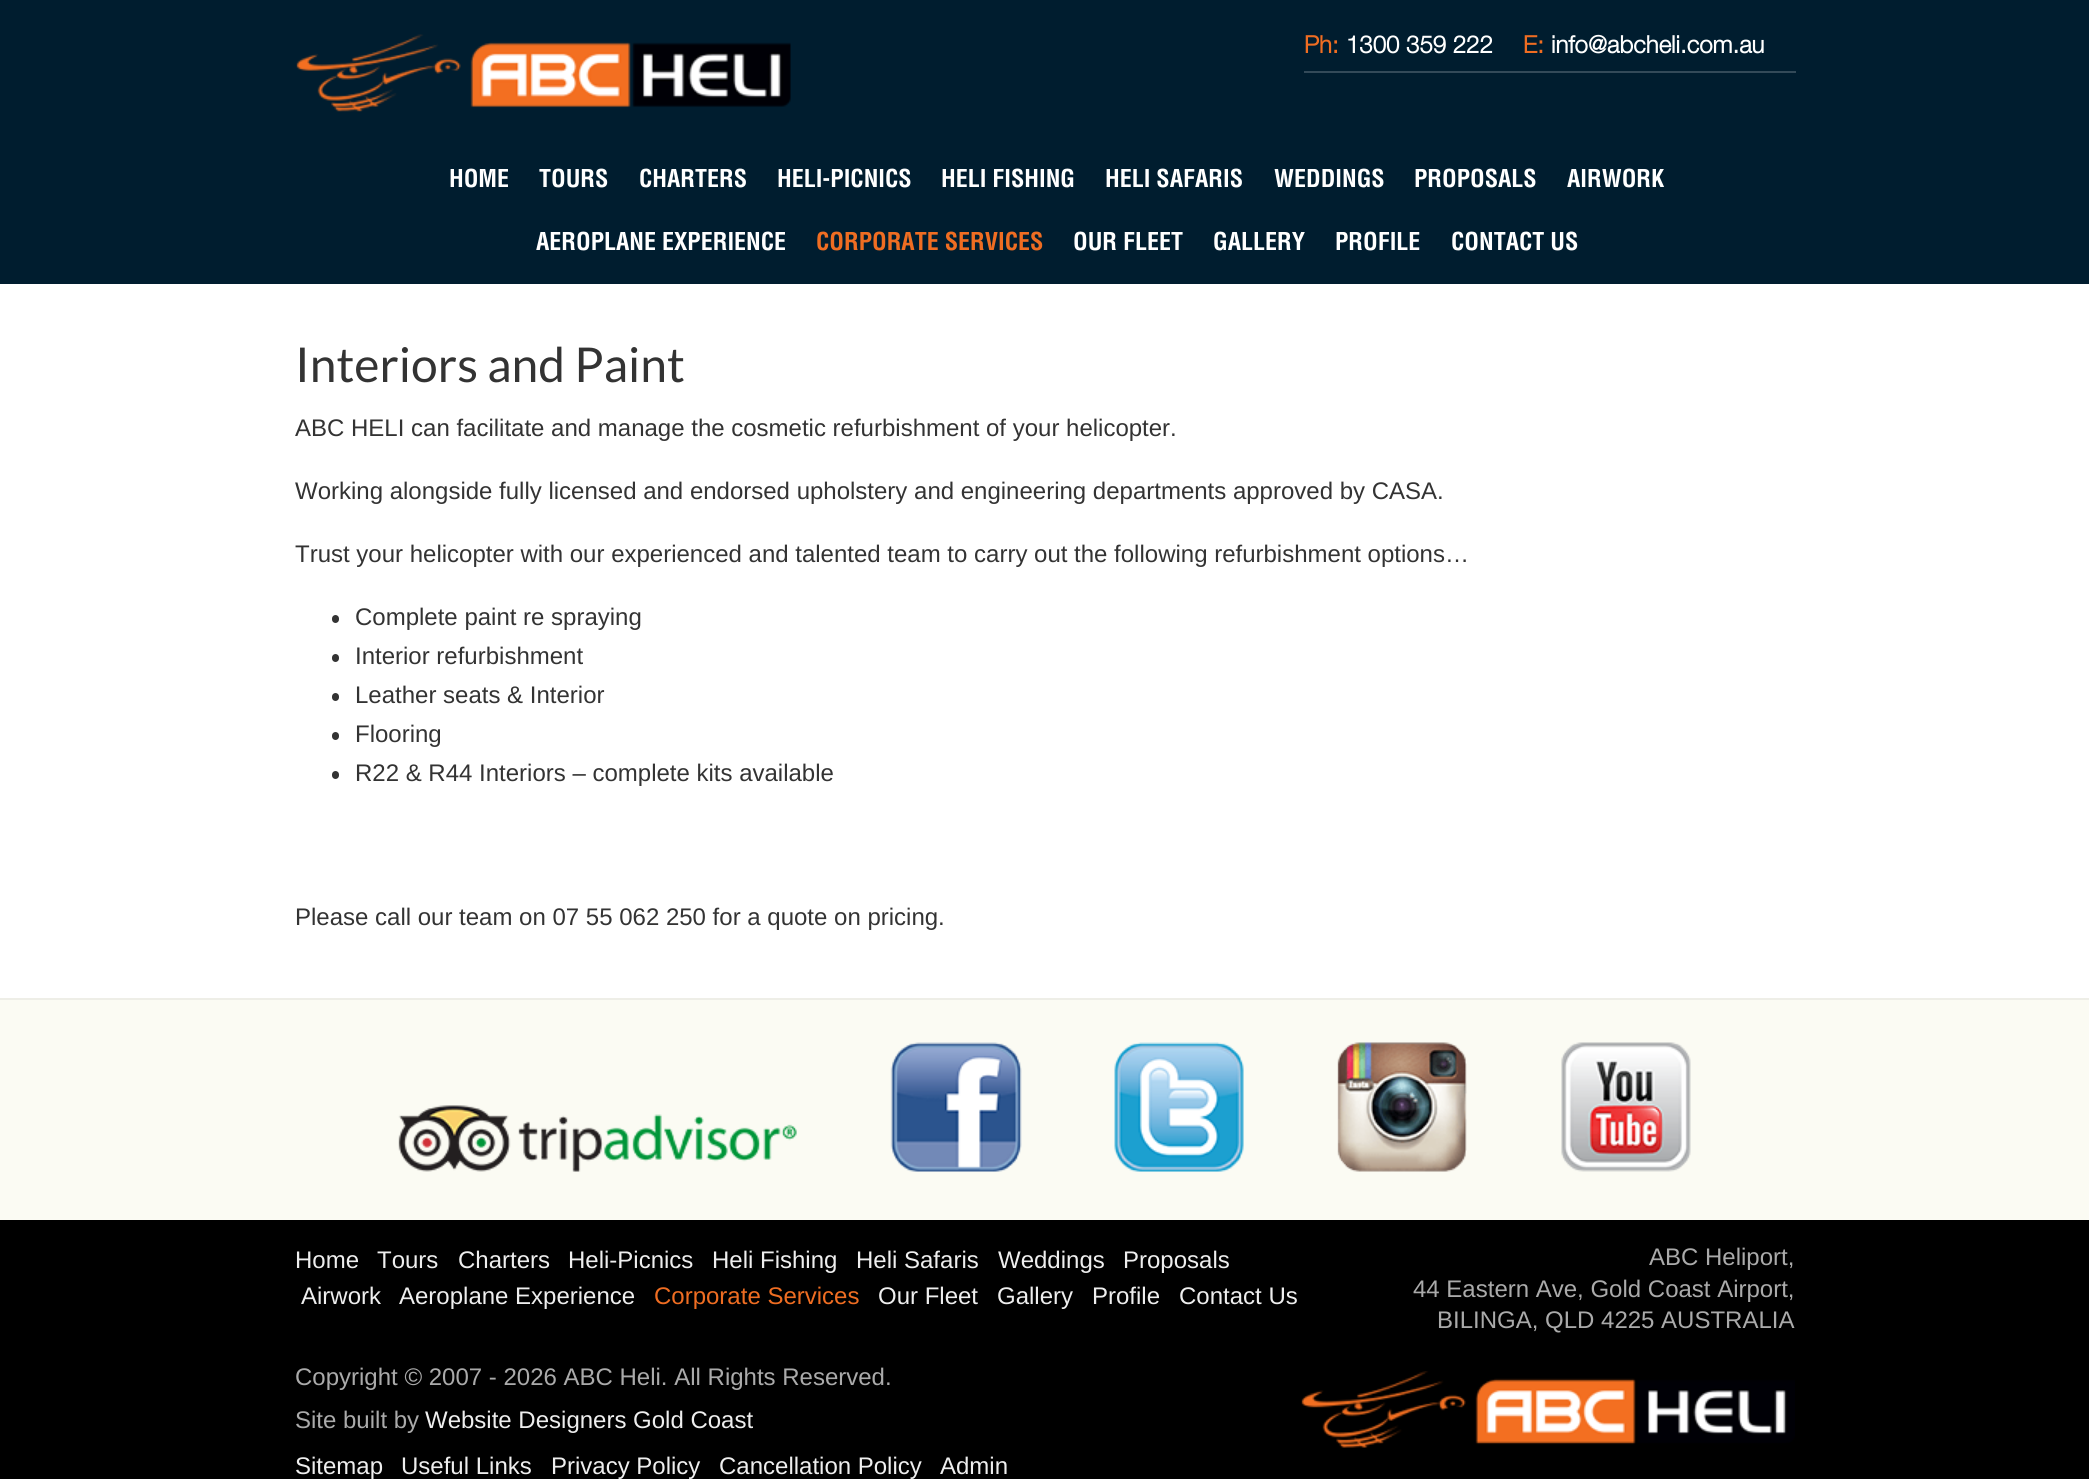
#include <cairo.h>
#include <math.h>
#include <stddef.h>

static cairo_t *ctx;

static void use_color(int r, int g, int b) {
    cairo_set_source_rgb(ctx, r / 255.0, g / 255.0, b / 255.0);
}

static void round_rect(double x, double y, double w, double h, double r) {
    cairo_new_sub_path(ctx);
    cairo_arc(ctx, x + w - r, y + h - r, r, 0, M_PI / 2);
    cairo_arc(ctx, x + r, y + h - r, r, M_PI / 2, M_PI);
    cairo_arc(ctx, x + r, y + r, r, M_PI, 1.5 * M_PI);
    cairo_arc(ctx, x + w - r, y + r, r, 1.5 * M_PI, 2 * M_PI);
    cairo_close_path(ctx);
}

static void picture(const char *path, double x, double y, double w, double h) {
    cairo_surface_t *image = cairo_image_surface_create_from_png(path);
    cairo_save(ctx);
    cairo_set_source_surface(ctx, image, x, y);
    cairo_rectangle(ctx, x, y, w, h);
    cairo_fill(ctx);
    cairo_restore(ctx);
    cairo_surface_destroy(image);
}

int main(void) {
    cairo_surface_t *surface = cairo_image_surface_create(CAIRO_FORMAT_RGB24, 2089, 1479);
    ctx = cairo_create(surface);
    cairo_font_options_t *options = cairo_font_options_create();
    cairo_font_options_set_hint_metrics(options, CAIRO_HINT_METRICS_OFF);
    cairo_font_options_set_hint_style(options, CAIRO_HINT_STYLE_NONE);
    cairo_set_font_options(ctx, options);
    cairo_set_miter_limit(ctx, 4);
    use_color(255, 255, 255);
    cairo_paint(ctx);
    use_color(0, 29, 47);
    cairo_rectangle(ctx, 0, 0, 2089, 284);
    cairo_fill(ctx);
    picture("img1.png", 296, 34, 495, 78);
    use_color(51, 74, 89);
    cairo_rectangle(ctx, 1304, 71, 492, 2);
    cairo_fill(ctx);
    cairo_select_font_face(ctx, "Helvetica Neue", CAIRO_FONT_SLANT_NORMAL, CAIRO_FONT_WEIGHT_BOLD);
    cairo_set_font_size(ctx, 24);
    use_color(239, 109, 34);
    cairo_move_to(ctx, 1304, 53);
    cairo_show_text(ctx, "Ph:");
    use_color(255, 255, 255);
    cairo_move_to(ctx, 1346, 53);
    cairo_show_text(ctx, "1300 359 222");
    use_color(239, 109, 34);
    cairo_move_to(ctx, 1523, 53);
    cairo_show_text(ctx, "E:");
    use_color(255, 255, 255);
    cairo_move_to(ctx, 1551, 53);
    cairo_show_text(ctx, "info@abcheli.com.au");
    cairo_select_font_face(ctx, "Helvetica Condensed", CAIRO_FONT_SLANT_NORMAL, CAIRO_FONT_WEIGHT_BOLD);
    cairo_move_to(ctx, 449, 187);
    cairo_show_text(ctx, "HOME");
    cairo_move_to(ctx, 539, 187);
    cairo_show_text(ctx, "TOURS");
    cairo_move_to(ctx, 639, 187);
    cairo_show_text(ctx, "CHARTERS");
    cairo_move_to(ctx, 777, 187);
    cairo_show_text(ctx, "HELI-PICNICS");
    cairo_move_to(ctx, 941, 187);
    cairo_show_text(ctx, "HELI FISHING");
    cairo_move_to(ctx, 1105, 187);
    cairo_show_text(ctx, "HELI SAFARIS");
    cairo_move_to(ctx, 1274, 187);
    cairo_show_text(ctx, "WEDDINGS");
    cairo_move_to(ctx, 1414, 187);
    cairo_show_text(ctx, "PROPOSALS");
    cairo_move_to(ctx, 1567, 187);
    cairo_show_text(ctx, "AIRWORK");
    cairo_move_to(ctx, 536, 250);
    cairo_show_text(ctx, "AEROPLANE EXPERIENCE");
    use_color(239, 109, 34);
    cairo_move_to(ctx, 816, 250);
    cairo_show_text(ctx, "CORPORATE SERVICES");
    use_color(255, 255, 255);
    cairo_move_to(ctx, 1073, 250);
    cairo_show_text(ctx, "OUR FLEET");
    cairo_move_to(ctx, 1213, 250);
    cairo_show_text(ctx, "GALLERY");
    cairo_move_to(ctx, 1335, 250);
    cairo_show_text(ctx, "PROFILE");
    cairo_move_to(ctx, 1451, 250);
    cairo_show_text(ctx, "CONTACT US");
    cairo_select_font_face(ctx, "Lato", CAIRO_FONT_SLANT_NORMAL, CAIRO_FONT_WEIGHT_NORMAL);
    cairo_set_font_size(ctx, 48);
    use_color(51, 51, 51);
    cairo_move_to(ctx, 295, 382);
    cairo_show_text(ctx, "Interiors and Paint");
    cairo_select_font_face(ctx, "Liberation Sans", CAIRO_FONT_SLANT_NORMAL, CAIRO_FONT_WEIGHT_NORMAL);
    cairo_set_font_size(ctx, 24);
    cairo_move_to(ctx, 295, 436);
    cairo_show_text(ctx, "ABC HELI can facilitate and manage the cosmetic refurbishment of your helicopter.");
    cairo_move_to(ctx, 295, 499);
    cairo_show_text(ctx, "Working alongside fully licensed and endorsed upholstery and engineering departments approved by CASA.");
    cairo_move_to(ctx, 295, 562);
    cairo_show_text(ctx, "Trust your helicopter with our experienced and talented team to carry out the following refurbishment options…");
    round_rect(332, 615, 7, 8, 3.5);
    cairo_fill(ctx);
    cairo_move_to(ctx, 355, 625);
    cairo_show_text(ctx, "Complete paint re spraying");
    round_rect(332, 654, 7, 8, 3.5);
    cairo_fill(ctx);
    cairo_move_to(ctx, 355, 664);
    cairo_show_text(ctx, "Interior refurbishment");
    round_rect(332, 693, 7, 8, 3.5);
    cairo_fill(ctx);
    cairo_move_to(ctx, 355, 703);
    cairo_show_text(ctx, "Leather seats & Interior");
    round_rect(332, 732, 7, 8, 3.5);
    cairo_fill(ctx);
    cairo_move_to(ctx, 355, 742);
    cairo_show_text(ctx, "Flooring");
    round_rect(332, 771, 7, 8, 3.5);
    cairo_fill(ctx);
    cairo_move_to(ctx, 355, 781);
    cairo_show_text(ctx, "R22 & R44 Interiors – complete kits available");
    cairo_move_to(ctx, 295, 925);
    cairo_show_text(ctx, "Please call our team on 07 55 062 250 for a quote on pricing.");
    use_color(251, 251, 243);
    cairo_rectangle(ctx, 0, 1000, 2089, 220);
    cairo_fill(ctx);
    use_color(238, 238, 231);
    cairo_rectangle(ctx, 0, 998, 2089, 2);
    cairo_fill(ctx);
    picture("img2.png", 398, 1105, 399, 67);
    picture("img3.png", 890, 1042, 132, 130);
    picture("img4.png", 1114, 1042, 130, 130);
    picture("img5.png", 1337, 1042, 130, 130);
    picture("img6.png", 1561, 1042, 130, 130);
    use_color(0, 0, 0);
    cairo_rectangle(ctx, 0, 1220, 2089, 259);
    cairo_fill(ctx);
    use_color(238, 238, 238);
    cairo_move_to(ctx, 295, 1268);
    cairo_show_text(ctx, "Home");
    cairo_move_to(ctx, 377, 1268);
    cairo_show_text(ctx, "Tours");
    cairo_move_to(ctx, 458, 1268);
    cairo_show_text(ctx, "Charters");
    cairo_move_to(ctx, 568, 1268);
    cairo_show_text(ctx, "Heli-Picnics");
    cairo_move_to(ctx, 712, 1268);
    cairo_show_text(ctx, "Heli Fishing");
    cairo_move_to(ctx, 856, 1268);
    cairo_show_text(ctx, "Heli Safaris");
    cairo_move_to(ctx, 998, 1268);
    cairo_show_text(ctx, "Weddings");
    cairo_move_to(ctx, 1123, 1268);
    cairo_show_text(ctx, "Proposals");
    cairo_move_to(ctx, 301, 1304);
    cairo_show_text(ctx, "Airwork");
    cairo_move_to(ctx, 399, 1304);
    cairo_show_text(ctx, "Aeroplane Experience");
    use_color(239, 109, 34);
    cairo_move_to(ctx, 654, 1304);
    cairo_show_text(ctx, "Corporate Services");
    use_color(238, 238, 238);
    cairo_move_to(ctx, 878, 1304);
    cairo_show_text(ctx, "Our Fleet");
    cairo_move_to(ctx, 997, 1304);
    cairo_show_text(ctx, "Gallery");
    cairo_move_to(ctx, 1092, 1304);
    cairo_show_text(ctx, "Profile");
    cairo_move_to(ctx, 1179, 1304);
    cairo_show_text(ctx, "Contact Us");
    use_color(170, 170, 170);
    cairo_move_to(ctx, 1649, 1265);
    cairo_show_text(ctx, "ABC Heliport,");
    cairo_move_to(ctx, 1413, 1297);
    cairo_show_text(ctx, "44 Eastern Ave, Gold Coast Airport,");
    cairo_move_to(ctx, 1437, 1328);
    cairo_show_text(ctx, "BILINGA, QLD 4225 AUSTRALIA");
    picture("img7.png", 1301, 1371, 494, 77);
    cairo_move_to(ctx, 295, 1385);
    cairo_show_text(ctx, "Copyright © 2007 - 2026 ABC Heli. All Rights Reserved.");
    cairo_move_to(ctx, 295, 1428);
    cairo_show_text(ctx, "Site built by");
    use_color(238, 238, 238);
    cairo_move_to(ctx, 425, 1428);
    cairo_show_text(ctx, "Website Designers Gold Coast");
    cairo_move_to(ctx, 295, 1474);
    cairo_show_text(ctx, "Sitemap");
    cairo_move_to(ctx, 401, 1474);
    cairo_show_text(ctx, "Useful Links");
    cairo_move_to(ctx, 551, 1474);
    cairo_show_text(ctx, "Privacy Policy");
    cairo_move_to(ctx, 719, 1474);
    cairo_show_text(ctx, "Cancellation Policy");
    cairo_move_to(ctx, 940, 1474);
    cairo_show_text(ctx, "Admin");
    cairo_surface_write_to_png(surface, "result.png");
    cairo_font_options_destroy(options);
    cairo_destroy(ctx);
    cairo_surface_destroy(surface);
    return 0;
}
